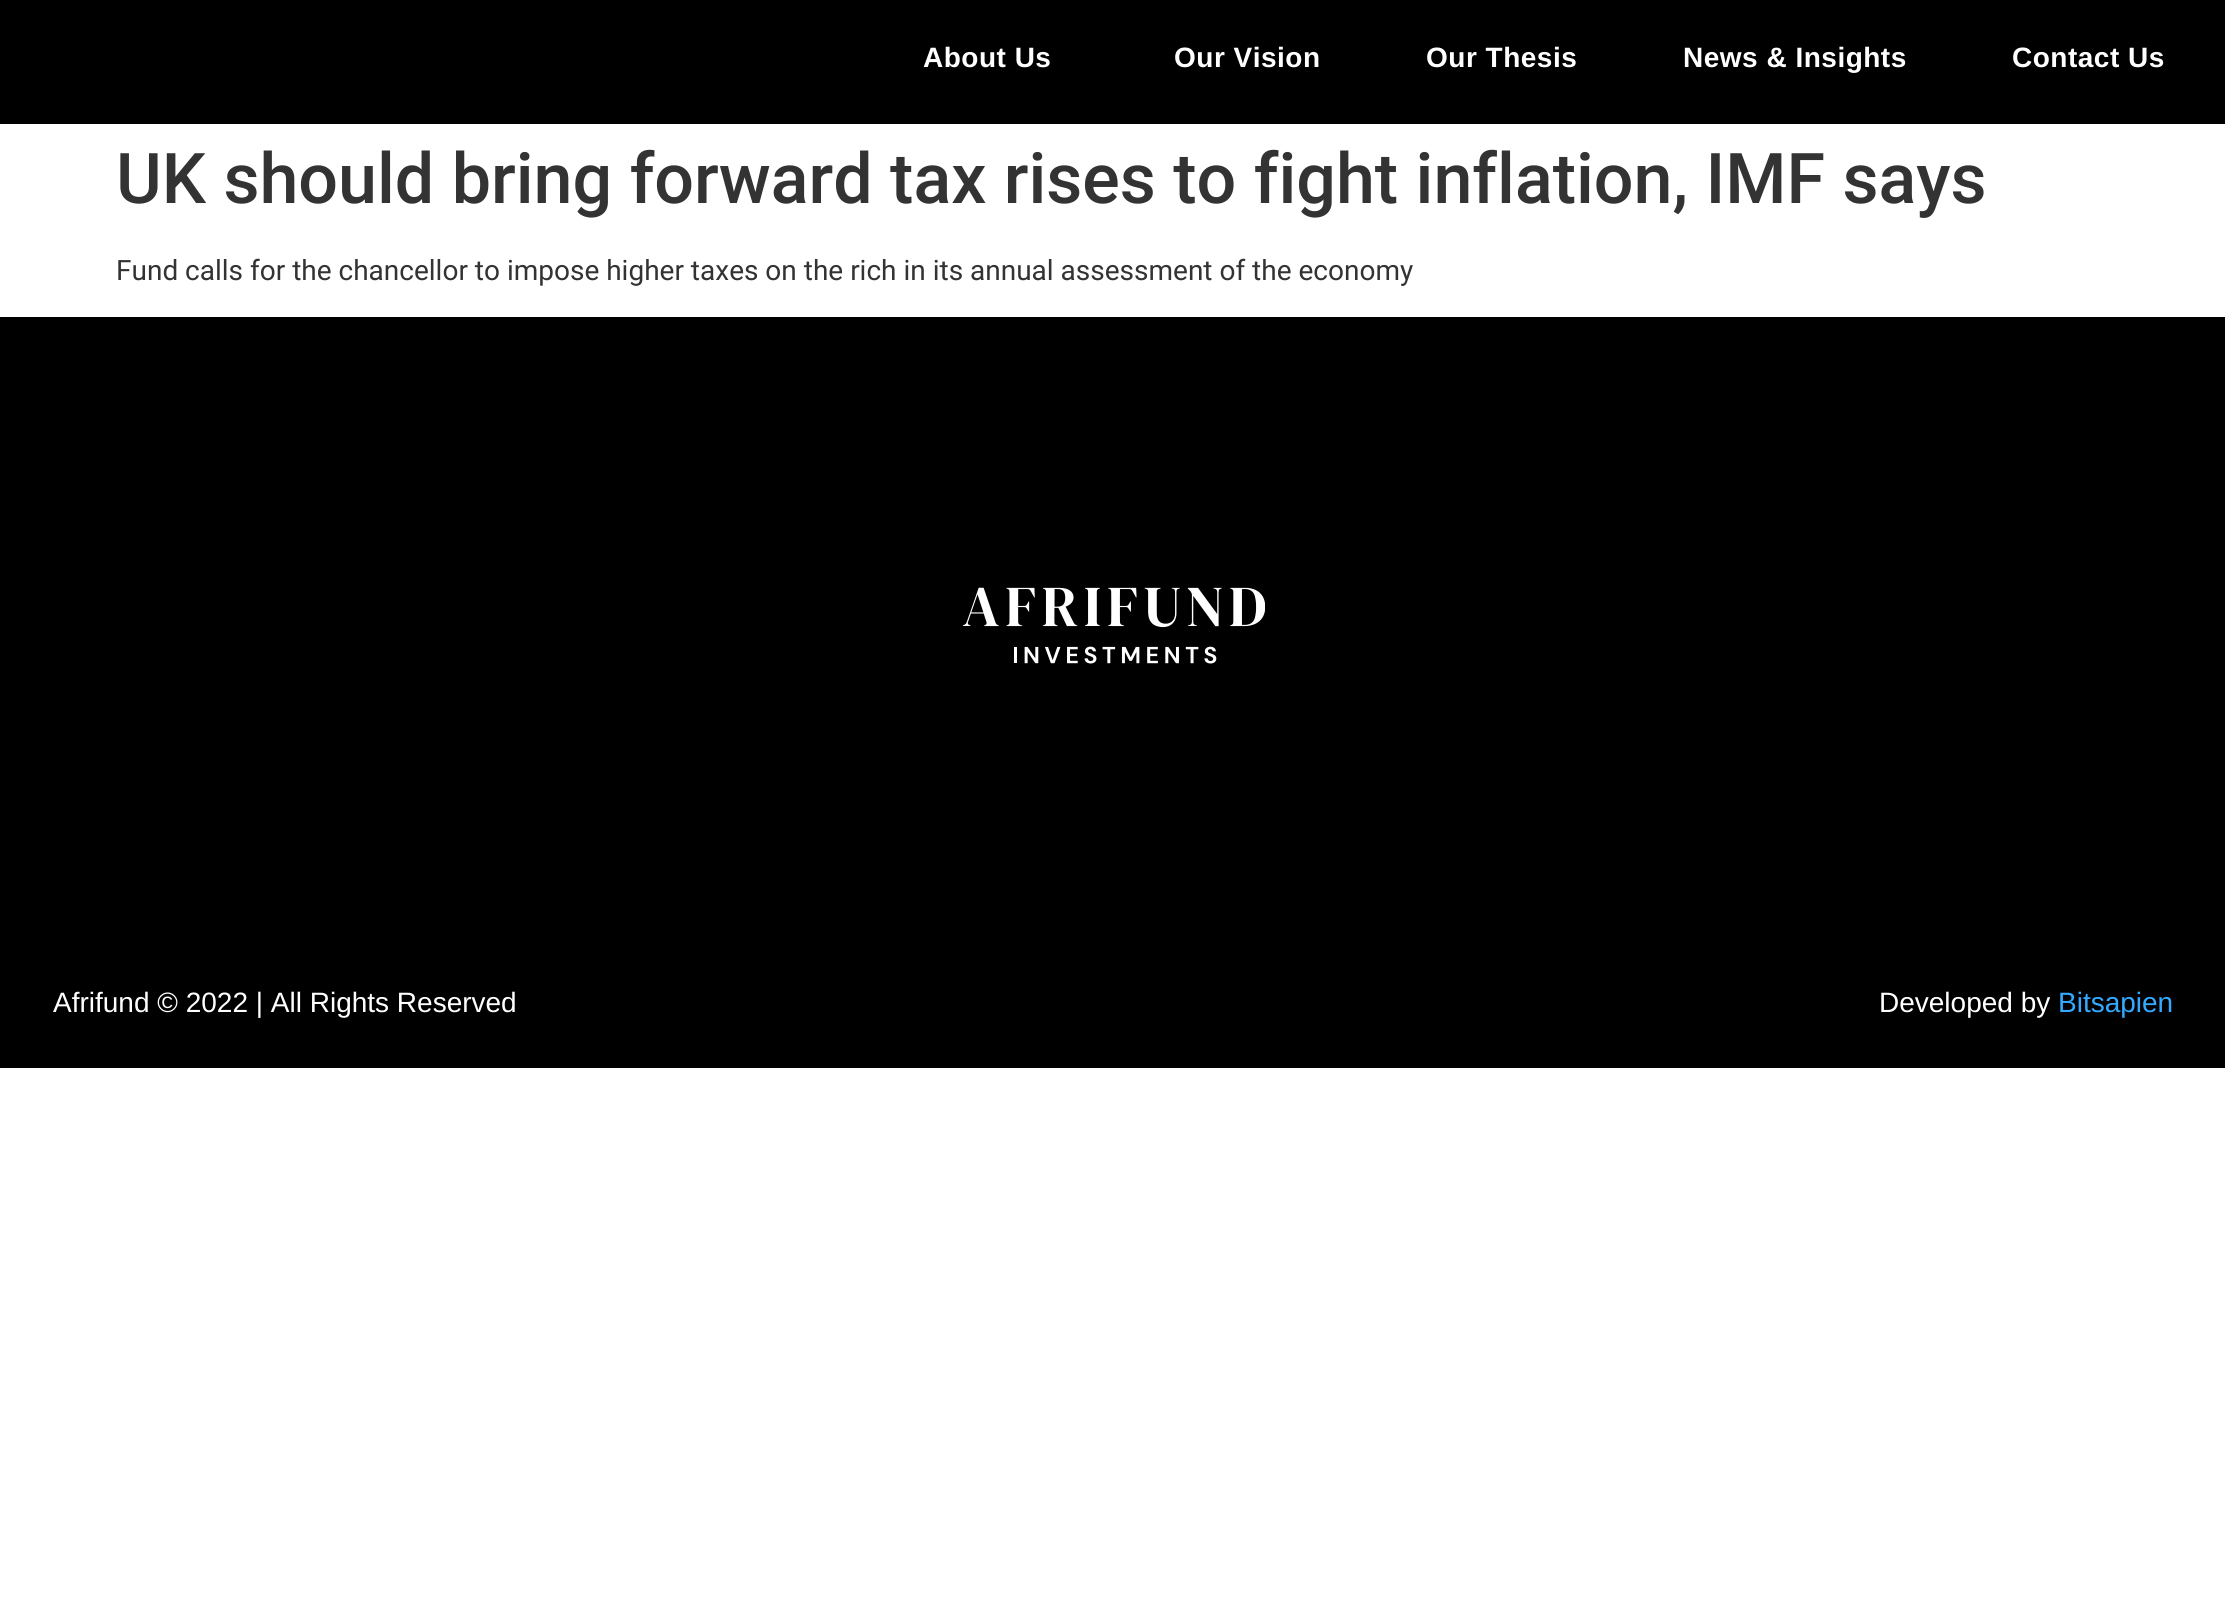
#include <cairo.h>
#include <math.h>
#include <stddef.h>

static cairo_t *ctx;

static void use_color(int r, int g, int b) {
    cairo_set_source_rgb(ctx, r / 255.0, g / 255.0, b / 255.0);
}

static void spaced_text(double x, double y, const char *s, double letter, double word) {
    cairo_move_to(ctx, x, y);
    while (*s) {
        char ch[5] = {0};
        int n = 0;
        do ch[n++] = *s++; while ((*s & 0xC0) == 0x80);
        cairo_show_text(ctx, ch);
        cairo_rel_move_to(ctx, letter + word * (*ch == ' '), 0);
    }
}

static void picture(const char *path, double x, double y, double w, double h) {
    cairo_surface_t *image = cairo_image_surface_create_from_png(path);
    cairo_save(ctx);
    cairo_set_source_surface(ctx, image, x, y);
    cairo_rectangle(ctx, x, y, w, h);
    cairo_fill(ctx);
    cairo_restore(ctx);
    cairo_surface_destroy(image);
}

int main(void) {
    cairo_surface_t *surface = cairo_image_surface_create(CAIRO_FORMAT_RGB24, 2225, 1606);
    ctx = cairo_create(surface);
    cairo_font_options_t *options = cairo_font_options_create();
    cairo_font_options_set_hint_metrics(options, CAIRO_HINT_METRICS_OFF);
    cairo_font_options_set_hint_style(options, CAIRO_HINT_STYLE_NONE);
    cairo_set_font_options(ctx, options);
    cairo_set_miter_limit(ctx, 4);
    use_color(255, 255, 255);
    cairo_paint(ctx);
    use_color(0, 0, 0);
    cairo_rectangle(ctx, 0, 0, 2225, 124);
    cairo_fill(ctx);
    cairo_select_font_face(ctx, "Liberation Sans", CAIRO_FONT_SLANT_NORMAL, CAIRO_FONT_WEIGHT_BOLD);
    cairo_set_font_size(ctx, 28);
    use_color(255, 255, 255);
    spaced_text(923, 67, "About Us", 0.5, 0);
    spaced_text(1174, 67, "Our Vision", 0.5, 0);
    spaced_text(1426, 67, "Our Thesis", 0.5, 0);
    spaced_text(1683, 67, "News & Insights", 0.5, 0);
    spaced_text(2012, 67, "Contact Us", 0.5, 0);
    cairo_select_font_face(ctx, "Roboto Medium", CAIRO_FONT_SLANT_NORMAL, CAIRO_FONT_WEIGHT_NORMAL);
    cairo_set_font_size(ctx, 70);
    use_color(51, 51, 51);
    cairo_move_to(ctx, 116, 203);
    cairo_show_text(ctx, "UK should bring forward tax rises to fight inflation, IMF says");
    cairo_select_font_face(ctx, "Roboto", CAIRO_FONT_SLANT_NORMAL, CAIRO_FONT_WEIGHT_NORMAL);
    cairo_set_font_size(ctx, 28);
    cairo_move_to(ctx, 116, 280);
    cairo_show_text(ctx, "Fund calls for the chancellor to impose higher taxes on the rich in its annual assessment of the economy");
    use_color(0, 0, 0);
    cairo_rectangle(ctx, 0, 317, 2225, 751);
    cairo_fill(ctx);
    picture("img1.png", 963, 587, 302, 77);
    cairo_select_font_face(ctx, "Liberation Sans", CAIRO_FONT_SLANT_NORMAL, CAIRO_FONT_WEIGHT_NORMAL);
    use_color(255, 255, 255);
    cairo_move_to(ctx, 53, 1012);
    cairo_show_text(ctx, "Afrifund © 2022 | All Rights Reserved");
    cairo_move_to(ctx, 1879, 1012);
    cairo_show_text(ctx, "Developed by");
    use_color(51, 170, 255);
    cairo_move_to(ctx, 2058, 1012);
    cairo_show_text(ctx, "Bitsapien");
    cairo_surface_write_to_png(surface, "result.png");
    cairo_font_options_destroy(options);
    cairo_destroy(ctx);
    cairo_surface_destroy(surface);
    return 0;
}
